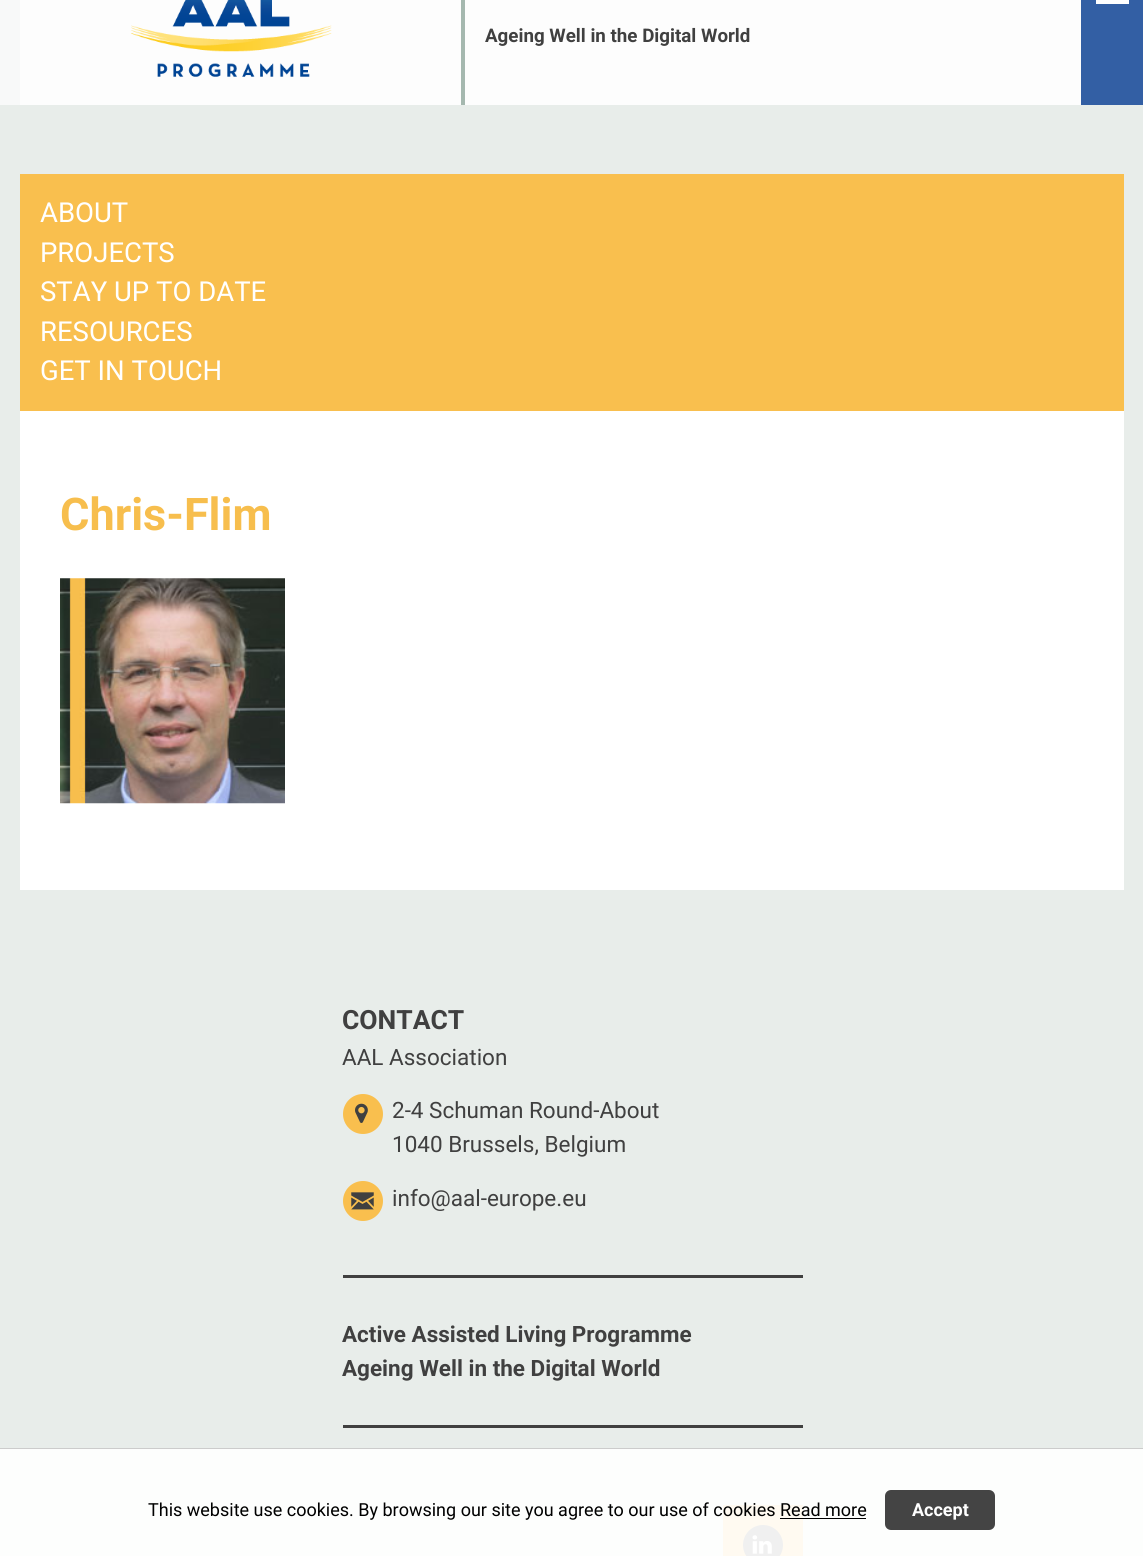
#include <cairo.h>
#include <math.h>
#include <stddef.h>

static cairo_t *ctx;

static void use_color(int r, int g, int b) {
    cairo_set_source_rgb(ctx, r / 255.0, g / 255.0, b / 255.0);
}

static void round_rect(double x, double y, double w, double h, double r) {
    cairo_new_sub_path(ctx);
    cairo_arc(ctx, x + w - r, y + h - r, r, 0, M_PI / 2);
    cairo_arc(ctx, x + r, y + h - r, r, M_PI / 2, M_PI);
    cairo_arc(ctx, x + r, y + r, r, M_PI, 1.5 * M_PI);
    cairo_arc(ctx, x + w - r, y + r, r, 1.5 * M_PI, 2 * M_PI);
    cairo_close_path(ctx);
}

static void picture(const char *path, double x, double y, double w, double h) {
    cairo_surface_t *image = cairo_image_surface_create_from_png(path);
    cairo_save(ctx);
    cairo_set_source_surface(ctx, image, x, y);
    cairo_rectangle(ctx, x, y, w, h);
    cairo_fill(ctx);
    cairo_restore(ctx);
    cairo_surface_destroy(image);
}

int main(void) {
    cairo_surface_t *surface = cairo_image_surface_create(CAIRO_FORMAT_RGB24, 1143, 1556);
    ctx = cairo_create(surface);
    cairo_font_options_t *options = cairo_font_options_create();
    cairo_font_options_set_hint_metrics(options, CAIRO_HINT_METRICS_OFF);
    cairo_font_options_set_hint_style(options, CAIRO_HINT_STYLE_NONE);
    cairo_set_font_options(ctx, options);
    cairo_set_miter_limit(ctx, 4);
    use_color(232, 237, 234);
    cairo_paint(ctx);
    use_color(253, 254, 253);
    cairo_rectangle(ctx, 0, 1449, 1143, 107);
    cairo_fill(ctx);
    use_color(248, 249, 249);
    cairo_rectangle(ctx, 0, 0, 20, 105);
    cairo_fill(ctx);
    use_color(253, 253, 253);
    cairo_rectangle(ctx, 20, 0, 441, 105);
    cairo_fill(ctx);
    picture("img1.png", 131, 0, 201, 77);
    use_color(165, 184, 175);
    cairo_rectangle(ctx, 461, 0, 4, 105);
    cairo_fill(ctx);
    use_color(253, 253, 253);
    cairo_rectangle(ctx, 465, 0, 616, 105);
    cairo_fill(ctx);
    cairo_select_font_face(ctx, "Roboto", CAIRO_FONT_SLANT_NORMAL, CAIRO_FONT_WEIGHT_BOLD);
    cairo_set_font_size(ctx, 18.75);
    use_color(64, 64, 64);
    cairo_move_to(ctx, 485, 42);
    cairo_show_text(ctx, "Ageing Well in the Digital World");
    use_color(51, 95, 164);
    cairo_rectangle(ctx, 1081, 0, 62, 105);
    cairo_fill(ctx);
    use_color(255, 255, 255);
    cairo_rectangle(ctx, 1096, 0, 33, 4);
    cairo_fill(ctx);
    use_color(249, 191, 78);
    cairo_rectangle(ctx, 20, 174, 1104, 237);
    cairo_fill(ctx);
    cairo_select_font_face(ctx, "Roboto", CAIRO_FONT_SLANT_NORMAL, CAIRO_FONT_WEIGHT_NORMAL);
    cairo_set_font_size(ctx, 27.5);
    use_color(255, 255, 255);
    cairo_move_to(ctx, 40, 222);
    cairo_show_text(ctx, "ABOUT");
    cairo_move_to(ctx, 40, 262);
    cairo_show_text(ctx, "PROJECTS");
    cairo_move_to(ctx, 40, 301);
    cairo_show_text(ctx, "STAY UP TO DATE");
    cairo_move_to(ctx, 40, 341);
    cairo_show_text(ctx, "RESOURCES");
    cairo_move_to(ctx, 40, 380);
    cairo_show_text(ctx, "GET IN TOUCH");
    cairo_rectangle(ctx, 20, 411, 1104, 479);
    cairo_fill(ctx);
    cairo_select_font_face(ctx, "Roboto", CAIRO_FONT_SLANT_NORMAL, CAIRO_FONT_WEIGHT_BOLD);
    cairo_set_font_size(ctx, 45);
    use_color(247, 190, 77);
    cairo_move_to(ctx, 60, 530);
    cairo_show_text(ctx, "Chris-Flim");
    picture("img2.png", 60, 578, 225, 226);
    use_color(64, 64, 64);
    cairo_rectangle(ctx, 343, 1275, 460, 3);
    cairo_fill(ctx);
    cairo_set_font_size(ctx, 26.5);
    cairo_move_to(ctx, 342, 1029);
    cairo_show_text(ctx, "CONTACT");
    cairo_select_font_face(ctx, "Roboto", CAIRO_FONT_SLANT_NORMAL, CAIRO_FONT_WEIGHT_NORMAL);
    cairo_set_font_size(ctx, 22.5);
    cairo_move_to(ctx, 342, 1065);
    cairo_show_text(ctx, "AAL Association");
    use_color(249, 191, 78);
    cairo_new_path(ctx);
    cairo_arc(ctx, 363, 1114, 20, 0, 2 * M_PI);
    cairo_fill(ctx);
    picture("img3.png", 355, 1103, 13, 20);
    use_color(64, 64, 64);
    cairo_move_to(ctx, 392, 1118);
    cairo_show_text(ctx, "2-4 Schuman Round-About");
    cairo_move_to(ctx, 392, 1152);
    cairo_show_text(ctx, "1040 Brussels, Belgium");
    use_color(249, 191, 78);
    cairo_new_path(ctx);
    cairo_arc(ctx, 363, 1201, 20, 0, 2 * M_PI);
    cairo_fill(ctx);
    picture("img4.png", 351, 1192, 23, 18);
    use_color(64, 64, 64);
    cairo_move_to(ctx, 392, 1206);
    cairo_show_text(ctx, "info@aal-europe.eu");
    cairo_rectangle(ctx, 343, 1425, 460, 3);
    cairo_fill(ctx);
    cairo_select_font_face(ctx, "Roboto", CAIRO_FONT_SLANT_NORMAL, CAIRO_FONT_WEIGHT_BOLD);
    cairo_move_to(ctx, 342, 1342);
    cairo_show_text(ctx, "Active Assisted Living Programme");
    cairo_move_to(ctx, 342, 1376);
    cairo_show_text(ctx, "Ageing Well in the Digital World");
    use_color(255, 250, 241);
    cairo_rectangle(ctx, 723, 1505, 80, 51);
    cairo_fill(ctx);
    use_color(240, 240, 240);
    cairo_arc(ctx, 763, 1545, 20, 0, 2 * M_PI);
    cairo_fill(ctx);
    picture("img5.png", 752, 1535, 20, 19);
    use_color(204, 204, 204);
    cairo_rectangle(ctx, 0, 1448, 1143, 1);
    cairo_fill(ctx);
    cairo_select_font_face(ctx, "Roboto", CAIRO_FONT_SLANT_NORMAL, CAIRO_FONT_WEIGHT_NORMAL);
    cairo_set_font_size(ctx, 18);
    use_color(0, 0, 0);
    cairo_move_to(ctx, 148, 1516);
    cairo_show_text(ctx, "This website use cookies. By browsing our site you agree to our use of cookies Read more");
    use_color(68, 68, 68);
    round_rect(885, 1490, 110, 40, 6);
    cairo_fill(ctx);
    cairo_select_font_face(ctx, "Roboto", CAIRO_FONT_SLANT_NORMAL, CAIRO_FONT_WEIGHT_BOLD);
    use_color(255, 255, 255);
    cairo_move_to(ctx, 912, 1516);
    cairo_show_text(ctx, "Accept");
    use_color(0, 0, 0);
    cairo_rectangle(ctx, 780, 1518, 86, 1);
    cairo_fill(ctx);
    cairo_surface_write_to_png(surface, "result.png");
    cairo_font_options_destroy(options);
    cairo_destroy(ctx);
    cairo_surface_destroy(surface);
    return 0;
}
